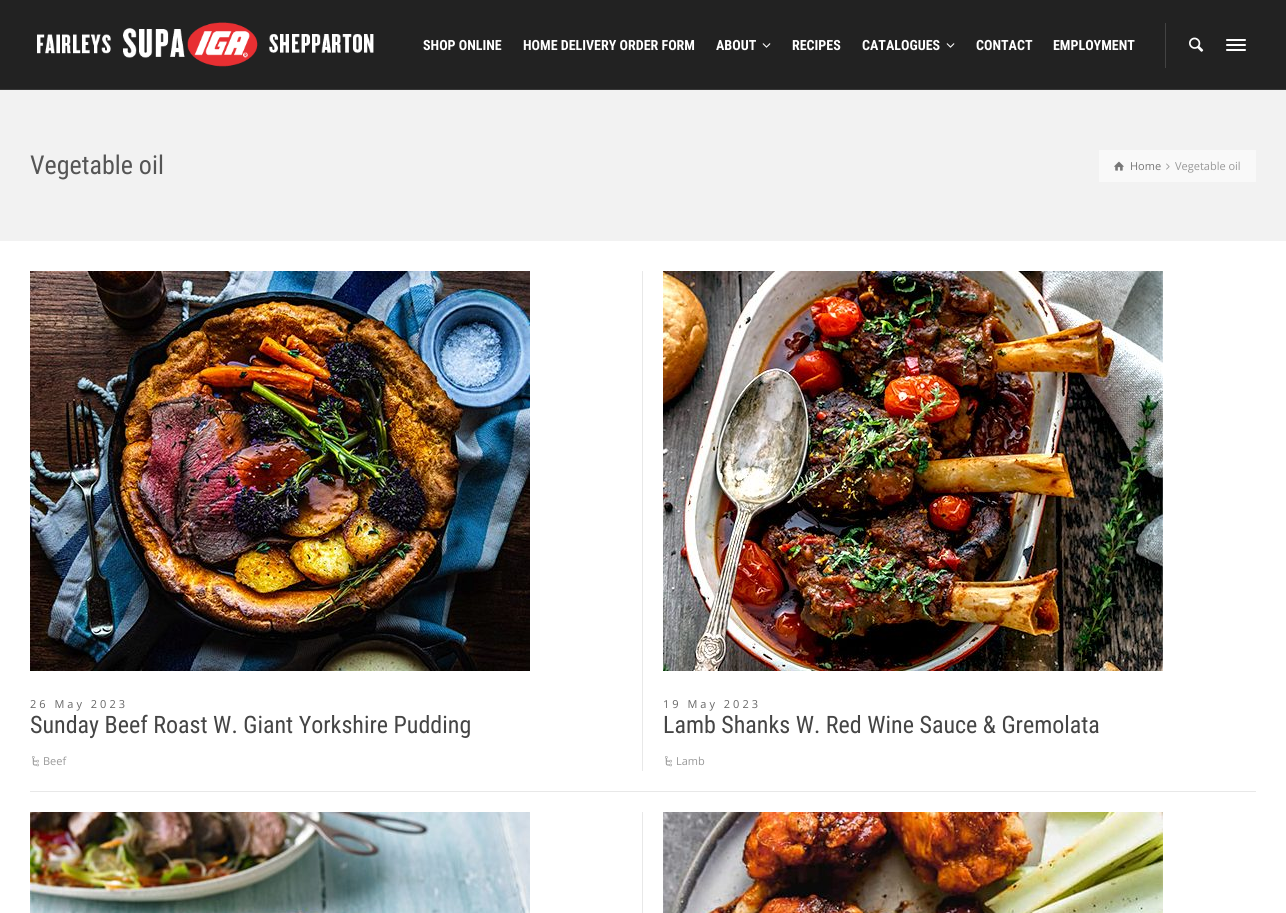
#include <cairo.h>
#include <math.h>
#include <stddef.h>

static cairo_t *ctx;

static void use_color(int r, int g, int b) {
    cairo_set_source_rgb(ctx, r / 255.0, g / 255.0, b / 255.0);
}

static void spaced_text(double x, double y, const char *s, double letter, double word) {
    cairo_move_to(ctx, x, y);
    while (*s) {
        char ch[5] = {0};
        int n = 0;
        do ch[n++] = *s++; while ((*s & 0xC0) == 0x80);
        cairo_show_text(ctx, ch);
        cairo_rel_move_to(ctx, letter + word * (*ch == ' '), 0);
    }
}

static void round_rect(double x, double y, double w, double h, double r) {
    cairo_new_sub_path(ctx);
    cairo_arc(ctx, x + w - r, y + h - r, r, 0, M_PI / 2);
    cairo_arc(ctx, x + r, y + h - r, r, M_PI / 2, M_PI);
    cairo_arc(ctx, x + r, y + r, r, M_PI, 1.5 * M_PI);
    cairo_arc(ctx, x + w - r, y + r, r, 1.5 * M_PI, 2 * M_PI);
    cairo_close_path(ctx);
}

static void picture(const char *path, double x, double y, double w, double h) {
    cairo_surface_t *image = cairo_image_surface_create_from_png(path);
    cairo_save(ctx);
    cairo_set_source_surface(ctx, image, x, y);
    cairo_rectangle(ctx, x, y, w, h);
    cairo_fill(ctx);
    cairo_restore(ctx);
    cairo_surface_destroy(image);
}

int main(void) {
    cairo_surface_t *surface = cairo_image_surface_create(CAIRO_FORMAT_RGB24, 1286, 913);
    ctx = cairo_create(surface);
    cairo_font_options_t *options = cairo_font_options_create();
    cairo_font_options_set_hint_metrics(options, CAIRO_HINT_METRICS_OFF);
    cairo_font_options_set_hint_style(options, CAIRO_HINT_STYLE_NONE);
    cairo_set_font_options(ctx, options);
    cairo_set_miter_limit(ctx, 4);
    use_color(34, 34, 34);
    cairo_paint(ctx);
    use_color(56, 56, 56);
    cairo_rectangle(ctx, 0, 89, 1286, 1);
    cairo_fill(ctx);
    picture("img1.png", 37, 22, 337, 45);
    cairo_select_font_face(ctx, "Roboto Condensed", CAIRO_FONT_SLANT_NORMAL, CAIRO_FONT_WEIGHT_BOLD);
    cairo_set_font_size(ctx, 14);
    use_color(255, 255, 255);
    cairo_move_to(ctx, 423, 50);
    cairo_show_text(ctx, "SHOP ONLINE");
    cairo_move_to(ctx, 523, 50);
    cairo_show_text(ctx, "HOME DELIVERY ORDER FORM");
    cairo_move_to(ctx, 716, 50);
    cairo_show_text(ctx, "ABOUT");
    picture("img2.png", 762, 43, 9, 5);
    cairo_move_to(ctx, 792, 50);
    cairo_show_text(ctx, "RECIPES");
    cairo_move_to(ctx, 862, 50);
    cairo_show_text(ctx, "CATALOGUES");
    picture("img2.png", 946, 43, 9, 5);
    cairo_move_to(ctx, 976, 50);
    cairo_show_text(ctx, "CONTACT");
    cairo_move_to(ctx, 1053, 50);
    cairo_show_text(ctx, "EMPLOYMENT");
    use_color(67, 67, 67);
    cairo_rectangle(ctx, 1165, 23, 1, 45);
    cairo_fill(ctx);
    picture("img3.png", 1189, 37, 15, 15);
    use_color(255, 255, 255);
    round_rect(1226, 39, 20, 2, 1);
    cairo_fill(ctx);
    round_rect(1226, 44, 20, 2, 1);
    cairo_fill(ctx);
    round_rect(1226, 49, 20, 2, 1);
    cairo_fill(ctx);
    use_color(242, 242, 242);
    cairo_rectangle(ctx, 0, 90, 1286, 151);
    cairo_fill(ctx);
    cairo_select_font_face(ctx, "Roboto Condensed", CAIRO_FONT_SLANT_NORMAL, CAIRO_FONT_WEIGHT_NORMAL);
    cairo_set_font_size(ctx, 26);
    use_color(85, 85, 85);
    cairo_move_to(ctx, 30, 174);
    cairo_show_text(ctx, "Vegetable oil");
    use_color(249, 249, 249);
    cairo_rectangle(ctx, 1099, 150, 157, 32);
    cairo_fill(ctx);
    picture("img4.png", 1114, 161, 10, 10);
    cairo_select_font_face(ctx, "Open Sans", CAIRO_FONT_SLANT_NORMAL, CAIRO_FONT_WEIGHT_NORMAL);
    cairo_set_font_size(ctx, 11);
    use_color(119, 119, 119);
    cairo_move_to(ctx, 1130, 170);
    cairo_show_text(ctx, "Home");
    picture("img5.png", 1166, 163, 4, 7);
    use_color(153, 153, 153);
    cairo_move_to(ctx, 1175, 170);
    cairo_show_text(ctx, "Vegetable oil");
    use_color(255, 255, 255);
    cairo_rectangle(ctx, 0, 241, 1286, 672);
    cairo_fill(ctx);
    picture("img6.png", 30, 271, 500, 400);
    use_color(102, 102, 102);
    spaced_text(30, 708, "26 May 2023", 3, 0);
    cairo_select_font_face(ctx, "Roboto Condensed", CAIRO_FONT_SLANT_NORMAL, CAIRO_FONT_WEIGHT_NORMAL);
    cairo_set_font_size(ctx, 24);
    use_color(69, 69, 69);
    cairo_move_to(ctx, 30, 733);
    cairo_show_text(ctx, "Sunday Beef Roast W. Giant Yorkshire Pudding");
    picture("img7.png", 32, 756, 7, 11);
    cairo_select_font_face(ctx, "Open Sans", CAIRO_FONT_SLANT_NORMAL, CAIRO_FONT_WEIGHT_NORMAL);
    cairo_set_font_size(ctx, 11);
    use_color(153, 153, 153);
    cairo_move_to(ctx, 43, 765);
    cairo_show_text(ctx, "Beef");
    use_color(232, 232, 232);
    cairo_rectangle(ctx, 642, 271, 1, 500);
    cairo_fill(ctx);
    picture("img8.png", 663, 271, 500, 400);
    use_color(102, 102, 102);
    spaced_text(663, 708, "19 May 2023", 3, 0);
    cairo_select_font_face(ctx, "Roboto Condensed", CAIRO_FONT_SLANT_NORMAL, CAIRO_FONT_WEIGHT_NORMAL);
    cairo_set_font_size(ctx, 24);
    use_color(69, 69, 69);
    cairo_move_to(ctx, 663, 733);
    cairo_show_text(ctx, "Lamb Shanks W. Red Wine Sauce & Gremolata");
    picture("img7.png", 665, 756, 7, 11);
    cairo_select_font_face(ctx, "Open Sans", CAIRO_FONT_SLANT_NORMAL, CAIRO_FONT_WEIGHT_NORMAL);
    cairo_set_font_size(ctx, 11);
    use_color(153, 153, 153);
    cairo_move_to(ctx, 676, 765);
    cairo_show_text(ctx, "Lamb");
    use_color(232, 232, 232);
    cairo_rectangle(ctx, 30, 791, 1226, 1);
    cairo_fill(ctx);
    picture("img9.png", 30, 812, 500, 101);
    cairo_rectangle(ctx, 642, 812, 1, 101);
    cairo_fill(ctx);
    picture("img10.png", 663, 812, 500, 101);
    cairo_surface_write_to_png(surface, "result.png");
    cairo_font_options_destroy(options);
    cairo_destroy(ctx);
    cairo_surface_destroy(surface);
    return 0;
}
